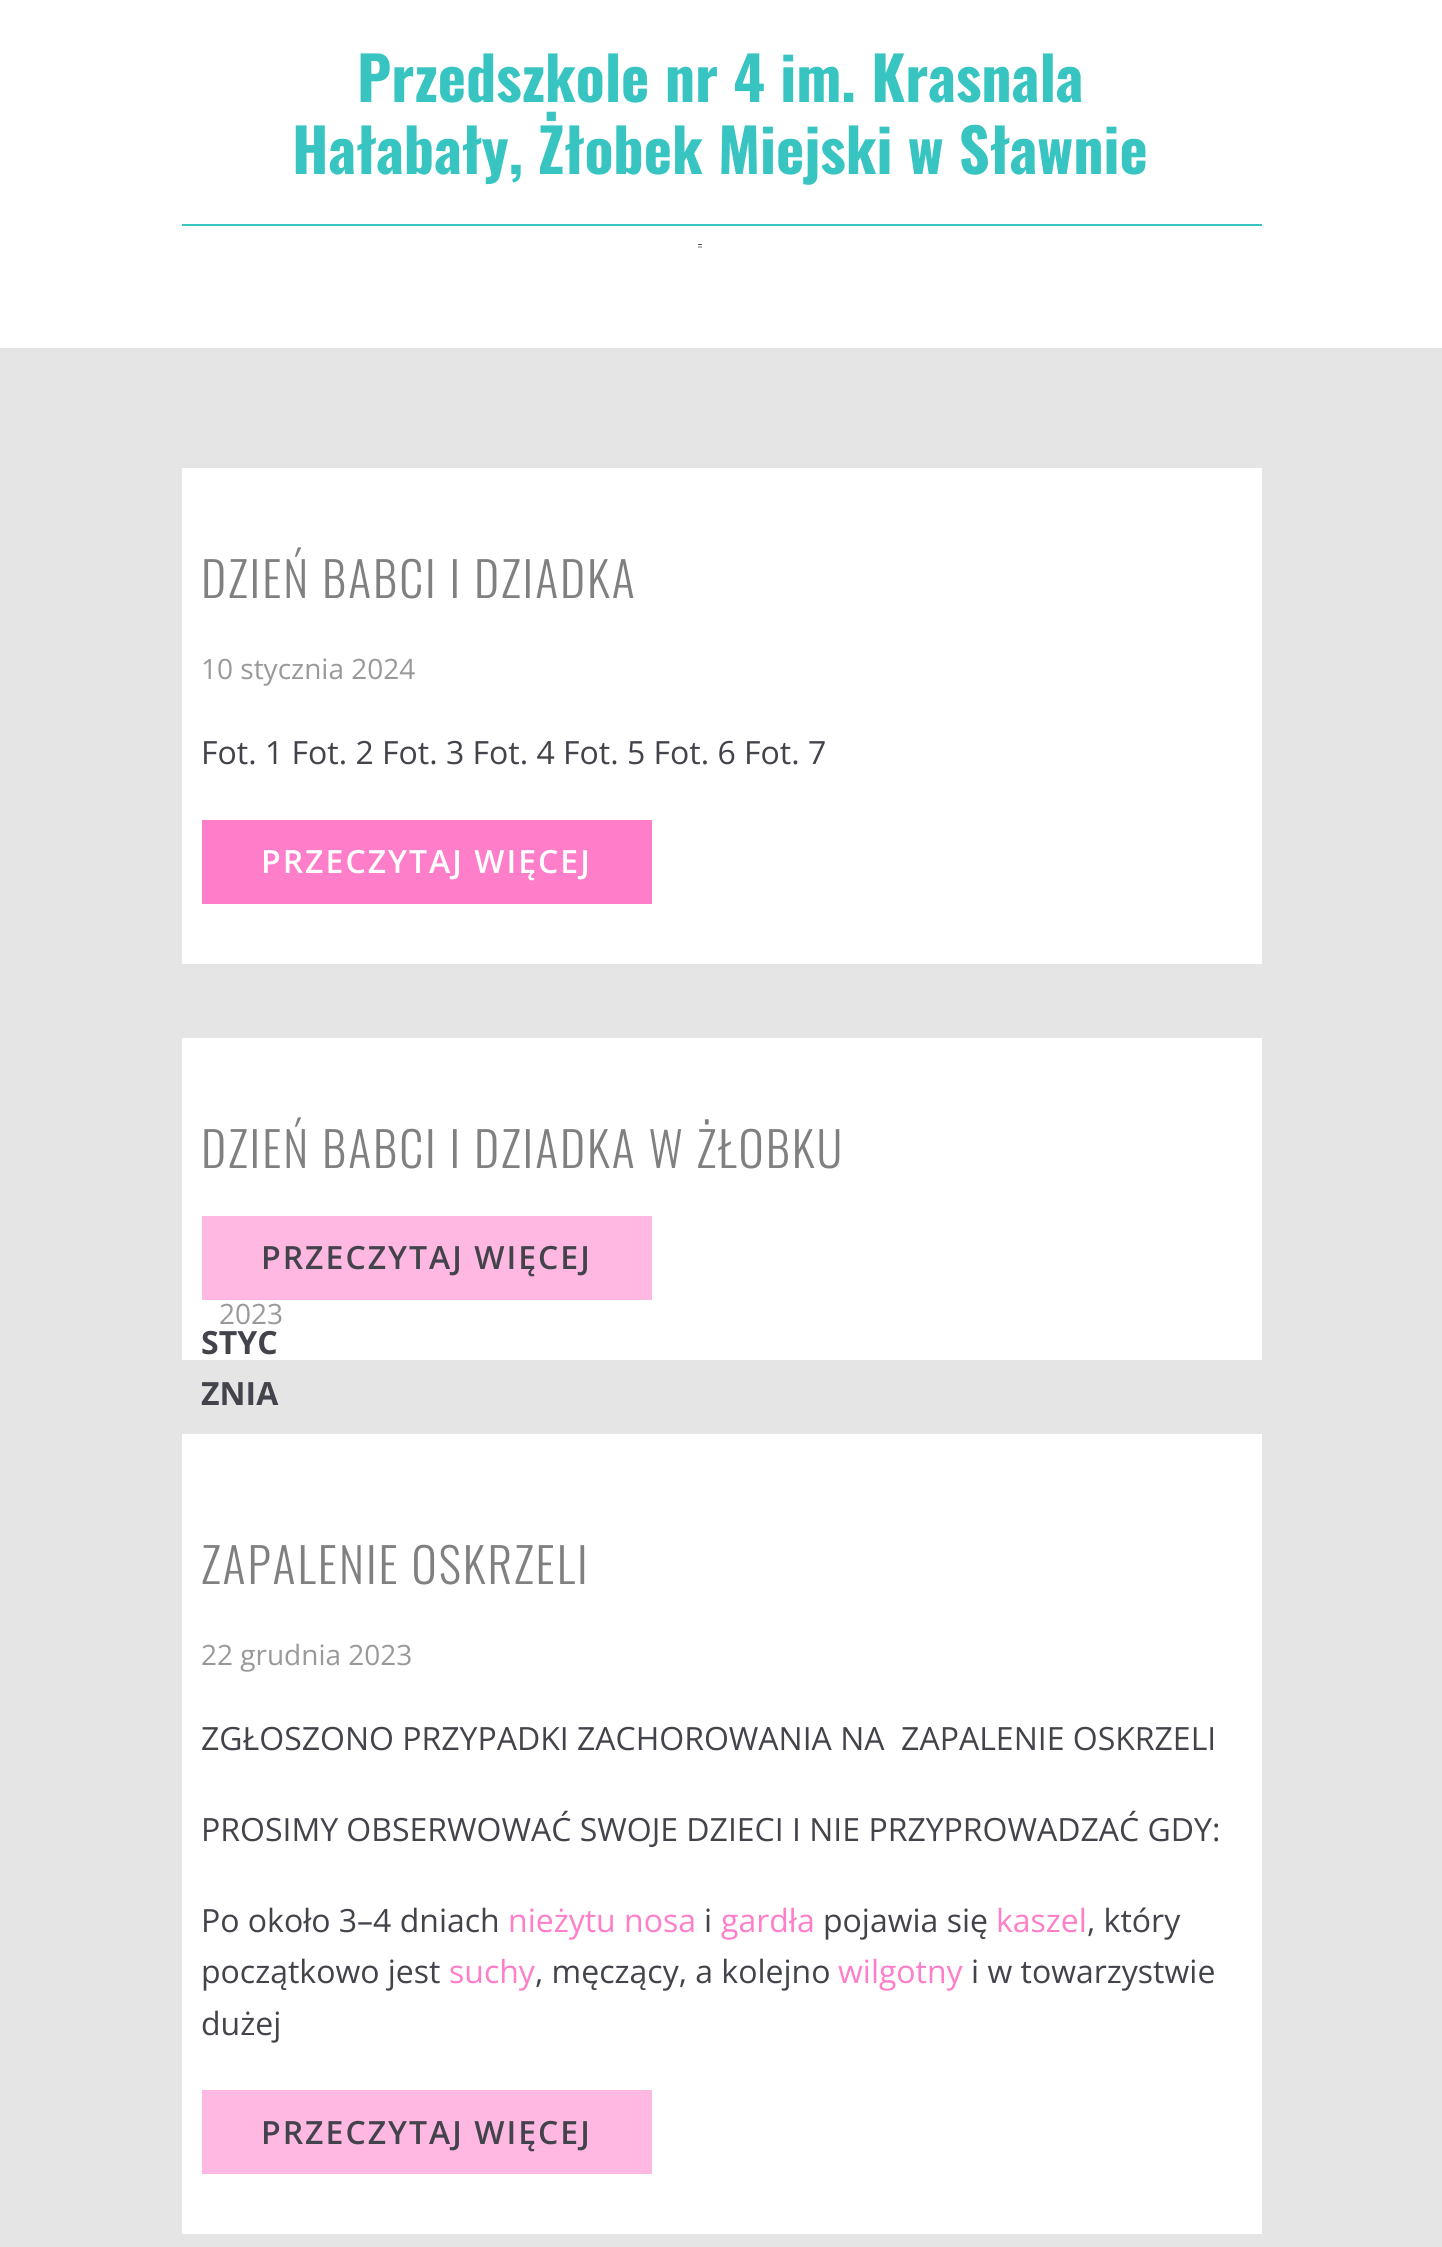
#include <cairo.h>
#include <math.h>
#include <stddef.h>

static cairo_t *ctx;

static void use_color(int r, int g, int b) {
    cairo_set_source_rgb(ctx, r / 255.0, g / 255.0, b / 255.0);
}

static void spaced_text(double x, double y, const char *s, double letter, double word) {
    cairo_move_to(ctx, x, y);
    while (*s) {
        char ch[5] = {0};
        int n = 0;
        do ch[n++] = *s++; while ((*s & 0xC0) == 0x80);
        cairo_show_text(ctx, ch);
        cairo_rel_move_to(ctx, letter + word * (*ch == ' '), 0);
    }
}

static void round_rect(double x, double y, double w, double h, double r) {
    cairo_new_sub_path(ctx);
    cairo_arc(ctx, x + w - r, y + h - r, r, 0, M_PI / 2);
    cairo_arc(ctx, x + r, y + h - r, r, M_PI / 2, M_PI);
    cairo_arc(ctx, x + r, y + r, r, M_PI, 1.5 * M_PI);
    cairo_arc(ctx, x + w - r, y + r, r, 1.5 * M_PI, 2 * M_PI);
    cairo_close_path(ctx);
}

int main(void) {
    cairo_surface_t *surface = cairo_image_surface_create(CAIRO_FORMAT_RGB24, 1442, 2247);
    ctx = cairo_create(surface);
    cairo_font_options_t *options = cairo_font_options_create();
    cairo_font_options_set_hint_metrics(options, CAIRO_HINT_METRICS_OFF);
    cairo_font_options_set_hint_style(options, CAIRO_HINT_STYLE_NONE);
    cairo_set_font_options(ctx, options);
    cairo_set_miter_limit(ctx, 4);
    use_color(255, 255, 255);
    cairo_paint(ctx);
    cairo_select_font_face(ctx, "Oswald", CAIRO_FONT_SLANT_NORMAL, CAIRO_FONT_WEIGHT_BOLD);
    cairo_set_font_size(ctx, 60);
    use_color(56, 196, 193);
    cairo_move_to(ctx, 357, 102);
    cairo_show_text(ctx, "Przedszkole nr 4 im. Krasnala");
    cairo_move_to(ctx, 292, 174);
    cairo_show_text(ctx, "Hałabały, Żłobek Miejski w Sławnie");
    cairo_rectangle(ctx, 182, 224, 1080, 2);
    cairo_fill(ctx);
    use_color(66, 67, 75);
    round_rect(698, 244, 4, 1, 0.5);
    cairo_fill(ctx);
    use_color(183, 184, 187);
    cairo_rectangle(ctx, 698, 246, 4, 2);
    cairo_fill(ctx);
    use_color(229, 229, 229);
    cairo_rectangle(ctx, 0, 348, 1442, 1899);
    cairo_fill(ctx);
    use_color(255, 255, 255);
    cairo_rectangle(ctx, 182, 468, 1080, 496);
    cairo_fill(ctx);
    cairo_select_font_face(ctx, "Oswald Light", CAIRO_FONT_SLANT_NORMAL, CAIRO_FONT_WEIGHT_NORMAL);
    cairo_set_font_size(ctx, 48);
    use_color(128, 128, 128);
    spaced_text(201, 598, "DZIEŃ BABCI I DZIADKA", 2, 0);
    cairo_select_font_face(ctx, "Open Sans", CAIRO_FONT_SLANT_NORMAL, CAIRO_FONT_WEIGHT_NORMAL);
    cairo_set_font_size(ctx, 28);
    use_color(153, 153, 153);
    cairo_move_to(ctx, 201, 679);
    cairo_show_text(ctx, "10 stycznia 2024");
    cairo_set_font_size(ctx, 32);
    use_color(66, 67, 75);
    cairo_move_to(ctx, 201, 764);
    cairo_show_text(ctx, "Fot. 1 Fot. 2 Fot. 3 Fot. 4 Fot. 5 Fot. 6 Fot. 7");
    use_color(254, 126, 201);
    cairo_rectangle(ctx, 202, 820, 450, 84);
    cairo_fill(ctx);
    cairo_select_font_face(ctx, "Open Sans SemiBold", CAIRO_FONT_SLANT_NORMAL, CAIRO_FONT_WEIGHT_NORMAL);
    use_color(255, 255, 255);
    spaced_text(261, 873, "PRZECZYTAJ WIĘCEJ", 2, 0);
    cairo_rectangle(ctx, 182, 1038, 1080, 322);
    cairo_fill(ctx);
    cairo_select_font_face(ctx, "Oswald Light", CAIRO_FONT_SLANT_NORMAL, CAIRO_FONT_WEIGHT_NORMAL);
    cairo_set_font_size(ctx, 48);
    use_color(128, 128, 128);
    spaced_text(201, 1168, "DZIEŃ BABCI I DZIADKA W ŻŁOBKU", 2, 0);
    use_color(254, 184, 225);
    cairo_rectangle(ctx, 202, 1216, 450, 84);
    cairo_fill(ctx);
    cairo_select_font_face(ctx, "Open Sans SemiBold", CAIRO_FONT_SLANT_NORMAL, CAIRO_FONT_WEIGHT_NORMAL);
    cairo_set_font_size(ctx, 32);
    use_color(66, 67, 75);
    spaced_text(261, 1269, "PRZECZYTAJ WIĘCEJ", 2, 0);
    cairo_select_font_face(ctx, "Open Sans", CAIRO_FONT_SLANT_NORMAL, CAIRO_FONT_WEIGHT_NORMAL);
    cairo_set_font_size(ctx, 28);
    use_color(153, 153, 153);
    cairo_move_to(ctx, 219, 1324);
    cairo_show_text(ctx, "2023");
    cairo_select_font_face(ctx, "Open Sans", CAIRO_FONT_SLANT_NORMAL, CAIRO_FONT_WEIGHT_BOLD);
    cairo_set_font_size(ctx, 32);
    use_color(66, 67, 75);
    cairo_move_to(ctx, 201, 1354);
    cairo_show_text(ctx, "STYC");
    cairo_move_to(ctx, 201, 1405);
    cairo_show_text(ctx, "ZNIA");
    use_color(255, 255, 255);
    cairo_rectangle(ctx, 182, 1434, 1080, 800);
    cairo_fill(ctx);
    cairo_select_font_face(ctx, "Oswald Light", CAIRO_FONT_SLANT_NORMAL, CAIRO_FONT_WEIGHT_NORMAL);
    cairo_set_font_size(ctx, 48);
    use_color(128, 128, 128);
    spaced_text(201, 1584, "ZAPALENIE OSKRZELI", 2, 0);
    cairo_select_font_face(ctx, "Open Sans", CAIRO_FONT_SLANT_NORMAL, CAIRO_FONT_WEIGHT_NORMAL);
    cairo_set_font_size(ctx, 28);
    use_color(153, 153, 153);
    cairo_move_to(ctx, 201, 1665);
    cairo_show_text(ctx, "22 grudnia 2023");
    cairo_set_font_size(ctx, 32);
    use_color(66, 67, 75);
    cairo_move_to(ctx, 201, 1750);
    cairo_show_text(ctx, "ZGŁOSZONO PRZYPADKI ZACHOROWANIA NA  ZAPALENIE OSKRZELI");
    cairo_move_to(ctx, 201, 1841);
    cairo_show_text(ctx, "PROSIMY OBSERWOWAĆ SWOJE DZIECI I NIE PRZYPROWADZAĆ GDY:");
    cairo_move_to(ctx, 201, 1932);
    cairo_show_text(ctx, "Po około 3–4 dniach");
    use_color(254, 126, 201);
    cairo_move_to(ctx, 508, 1932);
    cairo_show_text(ctx, "nieżytu nosa");
    use_color(66, 67, 75);
    cairo_move_to(ctx, 704, 1932);
    cairo_show_text(ctx, "i");
    use_color(254, 126, 201);
    cairo_move_to(ctx, 721, 1932);
    cairo_show_text(ctx, "gardła");
    use_color(66, 67, 75);
    cairo_move_to(ctx, 823, 1932);
    cairo_show_text(ctx, "pojawia się");
    use_color(254, 126, 201);
    cairo_move_to(ctx, 996, 1932);
    cairo_show_text(ctx, "kaszel");
    use_color(66, 67, 75);
    cairo_move_to(ctx, 1087, 1932);
    cairo_show_text(ctx, ", który");
    cairo_move_to(ctx, 201, 1983);
    cairo_show_text(ctx, "początkowo jest");
    use_color(254, 126, 201);
    cairo_move_to(ctx, 449, 1983);
    cairo_show_text(ctx, "suchy");
    use_color(66, 67, 75);
    cairo_move_to(ctx, 535, 1983);
    cairo_show_text(ctx, ", męczący, a kolejno");
    use_color(254, 126, 201);
    cairo_move_to(ctx, 838, 1983);
    cairo_show_text(ctx, "wilgotny");
    use_color(66, 67, 75);
    cairo_move_to(ctx, 971, 1983);
    cairo_show_text(ctx, "i w towarzystwie");
    cairo_move_to(ctx, 201, 2035);
    cairo_show_text(ctx, "dużej");
    use_color(254, 184, 225);
    cairo_rectangle(ctx, 202, 2090, 450, 84);
    cairo_fill(ctx);
    cairo_select_font_face(ctx, "Open Sans SemiBold", CAIRO_FONT_SLANT_NORMAL, CAIRO_FONT_WEIGHT_NORMAL);
    use_color(66, 67, 75);
    spaced_text(261, 2144, "PRZECZYTAJ WIĘCEJ", 2, 0);
    cairo_surface_write_to_png(surface, "result.png");
    cairo_font_options_destroy(options);
    cairo_destroy(ctx);
    cairo_surface_destroy(surface);
    return 0;
}
